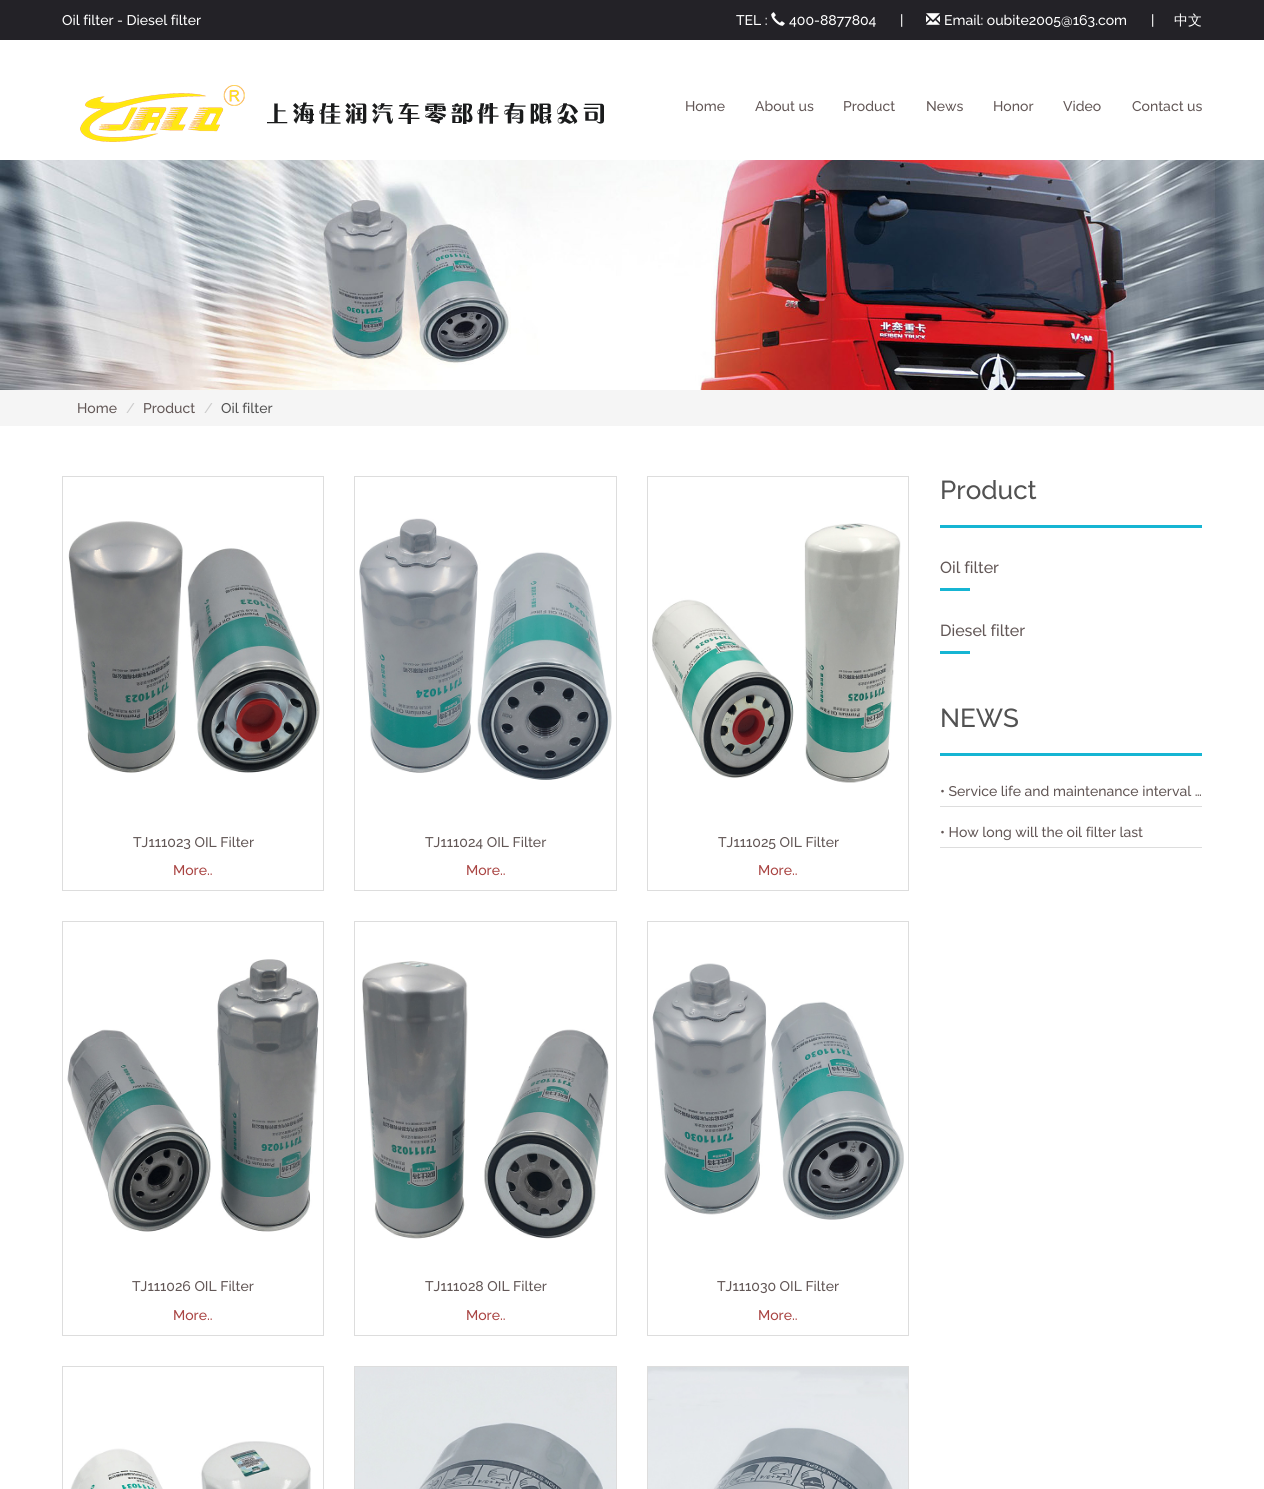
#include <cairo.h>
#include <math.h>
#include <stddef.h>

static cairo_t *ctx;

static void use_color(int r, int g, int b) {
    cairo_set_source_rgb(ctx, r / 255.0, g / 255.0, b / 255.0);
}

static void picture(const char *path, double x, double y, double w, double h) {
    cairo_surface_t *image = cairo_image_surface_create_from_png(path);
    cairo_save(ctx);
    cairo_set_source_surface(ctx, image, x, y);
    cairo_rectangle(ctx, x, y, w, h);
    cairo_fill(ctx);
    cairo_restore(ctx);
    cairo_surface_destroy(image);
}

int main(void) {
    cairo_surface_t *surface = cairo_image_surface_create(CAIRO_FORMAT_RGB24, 1264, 1489);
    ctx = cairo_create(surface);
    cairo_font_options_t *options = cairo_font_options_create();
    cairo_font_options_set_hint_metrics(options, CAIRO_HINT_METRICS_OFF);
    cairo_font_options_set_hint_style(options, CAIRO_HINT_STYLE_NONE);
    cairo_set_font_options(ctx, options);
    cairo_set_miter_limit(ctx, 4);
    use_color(255, 255, 255);
    cairo_paint(ctx);
    use_color(35, 34, 39);
    cairo_rectangle(ctx, 0, 0, 1264, 40);
    cairo_fill(ctx);
    cairo_select_font_face(ctx, "Raleway Medium", CAIRO_FONT_SLANT_NORMAL, CAIRO_FONT_WEIGHT_NORMAL);
    cairo_set_font_size(ctx, 14);
    use_color(255, 255, 255);
    cairo_move_to(ctx, 62, 25);
    cairo_show_text(ctx, "Oil filter - Diesel filter");
    cairo_move_to(ctx, 736, 25);
    cairo_show_text(ctx, "TEL :");
    picture("img1.png", 771, 12, 14, 14);
    cairo_move_to(ctx, 789, 25);
    cairo_show_text(ctx, "400-8877804");
    cairo_move_to(ctx, 900, 25);
    cairo_show_text(ctx, "|");
    picture("img2.png", 926, 13, 14, 12);
    cairo_move_to(ctx, 944, 25);
    cairo_show_text(ctx, "Email: oubite2005@163.com");
    cairo_move_to(ctx, 1151, 25);
    cairo_show_text(ctx, "|");
    cairo_select_font_face(ctx, "WenQuanYi Zen Hei Medium", CAIRO_FONT_SLANT_NORMAL, CAIRO_FONT_WEIGHT_NORMAL);
    cairo_move_to(ctx, 1174, 25);
    cairo_show_text(ctx, "中文");
    picture("img3.png", 80, 85, 524, 57);
    cairo_select_font_face(ctx, "Raleway Medium", CAIRO_FONT_SLANT_NORMAL, CAIRO_FONT_WEIGHT_NORMAL);
    use_color(98, 87, 86);
    cairo_move_to(ctx, 685, 111);
    cairo_show_text(ctx, "Home");
    cairo_move_to(ctx, 755, 111);
    cairo_show_text(ctx, "About us");
    cairo_move_to(ctx, 843, 111);
    cairo_show_text(ctx, "Product");
    cairo_move_to(ctx, 926, 111);
    cairo_show_text(ctx, "News");
    cairo_move_to(ctx, 993, 111);
    cairo_show_text(ctx, "Honor");
    cairo_move_to(ctx, 1063, 111);
    cairo_show_text(ctx, "Video");
    cairo_move_to(ctx, 1132, 111);
    cairo_show_text(ctx, "Contact us");
    picture("img4.png", 0, 160, 1264, 230);
    use_color(245, 245, 245);
    cairo_rectangle(ctx, 0, 390, 1264, 36);
    cairo_fill(ctx);
    use_color(98, 87, 86);
    cairo_move_to(ctx, 77, 413);
    cairo_show_text(ctx, "Home");
    use_color(204, 204, 204);
    cairo_move_to(ctx, 126, 413);
    cairo_show_text(ctx, "/");
    use_color(98, 87, 86);
    cairo_move_to(ctx, 143, 413);
    cairo_show_text(ctx, "Product");
    use_color(204, 204, 204);
    cairo_move_to(ctx, 204, 413);
    cairo_show_text(ctx, "/");
    use_color(82, 82, 82);
    cairo_move_to(ctx, 221, 413);
    cairo_show_text(ctx, "Oil filter");
    use_color(22, 181, 211);
    cairo_rectangle(ctx, 940, 525, 262, 3);
    cairo_fill(ctx);
    cairo_set_font_size(ctx, 26);
    use_color(82, 82, 82);
    cairo_move_to(ctx, 940, 499);
    cairo_show_text(ctx, "Product");
    cairo_set_font_size(ctx, 16);
    use_color(98, 87, 86);
    cairo_move_to(ctx, 940, 573);
    cairo_show_text(ctx, "Oil filter");
    use_color(22, 181, 211);
    cairo_rectangle(ctx, 940, 588, 30, 3);
    cairo_fill(ctx);
    use_color(98, 87, 86);
    cairo_move_to(ctx, 940, 636);
    cairo_show_text(ctx, "Diesel filter");
    use_color(22, 181, 211);
    cairo_rectangle(ctx, 940, 651, 30, 3);
    cairo_fill(ctx);
    cairo_rectangle(ctx, 940, 753, 262, 3);
    cairo_fill(ctx);
    cairo_set_font_size(ctx, 26);
    use_color(82, 82, 82);
    cairo_move_to(ctx, 940, 727);
    cairo_show_text(ctx, "NEWS");
    use_color(221, 221, 221);
    cairo_rectangle(ctx, 940, 806, 262, 1);
    cairo_fill(ctx);
    cairo_set_font_size(ctx, 14);
    use_color(98, 87, 86);
    cairo_move_to(ctx, 940, 796);
    cairo_show_text(ctx, "• Service life and maintenance interval …");
    use_color(221, 221, 221);
    cairo_rectangle(ctx, 940, 847, 262, 1);
    cairo_fill(ctx);
    use_color(98, 87, 86);
    cairo_move_to(ctx, 940, 837);
    cairo_show_text(ctx, "• How long will the oil filter last");
    cairo_rectangle(ctx, 62.5, 476.5, 261, 414);
    use_color(221, 221, 221);
    cairo_set_line_width(ctx, 1);
    cairo_stroke(ctx);
    picture("img5.png", 68, 521, 252, 252);
    use_color(98, 87, 86);
    cairo_move_to(ctx, 133, 847);
    cairo_show_text(ctx, "TJ111023 OIL Filter");
    use_color(169, 68, 66);
    cairo_move_to(ctx, 173, 875);
    cairo_show_text(ctx, "More..");
    cairo_rectangle(ctx, 354.5, 476.5, 262, 414);
    use_color(221, 221, 221);
    cairo_stroke(ctx);
    picture("img6.png", 359, 518, 253, 262);
    use_color(98, 87, 86);
    cairo_move_to(ctx, 425, 847);
    cairo_show_text(ctx, "TJ111024 OIL Filter");
    use_color(169, 68, 66);
    cairo_move_to(ctx, 466, 875);
    cairo_show_text(ctx, "More..");
    cairo_rectangle(ctx, 647.5, 476.5, 261, 414);
    use_color(221, 221, 221);
    cairo_stroke(ctx);
    picture("img7.png", 652, 523, 249, 260);
    use_color(98, 87, 86);
    cairo_move_to(ctx, 718, 847);
    cairo_show_text(ctx, "TJ111025 OIL Filter");
    use_color(169, 68, 66);
    cairo_move_to(ctx, 758, 875);
    cairo_show_text(ctx, "More..");
    cairo_rectangle(ctx, 62.5, 921.5, 261, 414);
    use_color(221, 221, 221);
    cairo_stroke(ctx);
    picture("img8.png", 67, 959, 252, 273);
    use_color(98, 87, 86);
    cairo_move_to(ctx, 132, 1291);
    cairo_show_text(ctx, "TJ111026 OIL Filter");
    use_color(169, 68, 66);
    cairo_move_to(ctx, 173, 1320);
    cairo_show_text(ctx, "More..");
    cairo_rectangle(ctx, 354.5, 921.5, 262, 414);
    use_color(221, 221, 221);
    cairo_stroke(ctx);
    picture("img9.png", 362, 961, 247, 278);
    use_color(98, 87, 86);
    cairo_move_to(ctx, 425, 1291);
    cairo_show_text(ctx, "TJ111028 OIL Filter");
    use_color(169, 68, 66);
    cairo_move_to(ctx, 466, 1320);
    cairo_show_text(ctx, "More..");
    cairo_rectangle(ctx, 647.5, 921.5, 261, 414);
    use_color(221, 221, 221);
    cairo_stroke(ctx);
    picture("img10.png", 652, 963, 252, 257);
    use_color(98, 87, 86);
    cairo_move_to(ctx, 717, 1291);
    cairo_show_text(ctx, "TJ111030 OIL Filter");
    use_color(169, 68, 66);
    cairo_move_to(ctx, 758, 1320);
    cairo_show_text(ctx, "More..");
    cairo_rectangle(ctx, 62.5, 1366.5, 261, 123);
    use_color(221, 221, 221);
    cairo_stroke(ctx);
    picture("img11.png", 70, 1441, 241, 48);
    cairo_rectangle(ctx, 354.5, 1366.5, 262, 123);
    cairo_stroke(ctx);
    picture("img12.png", 355, 1367, 261, 122);
    cairo_rectangle(ctx, 647.5, 1366.5, 261, 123);
    cairo_stroke(ctx);
    picture("img13.png", 648, 1367, 260, 122);
    cairo_surface_write_to_png(surface, "result.png");
    cairo_font_options_destroy(options);
    cairo_destroy(ctx);
    cairo_surface_destroy(surface);
    return 0;
}
